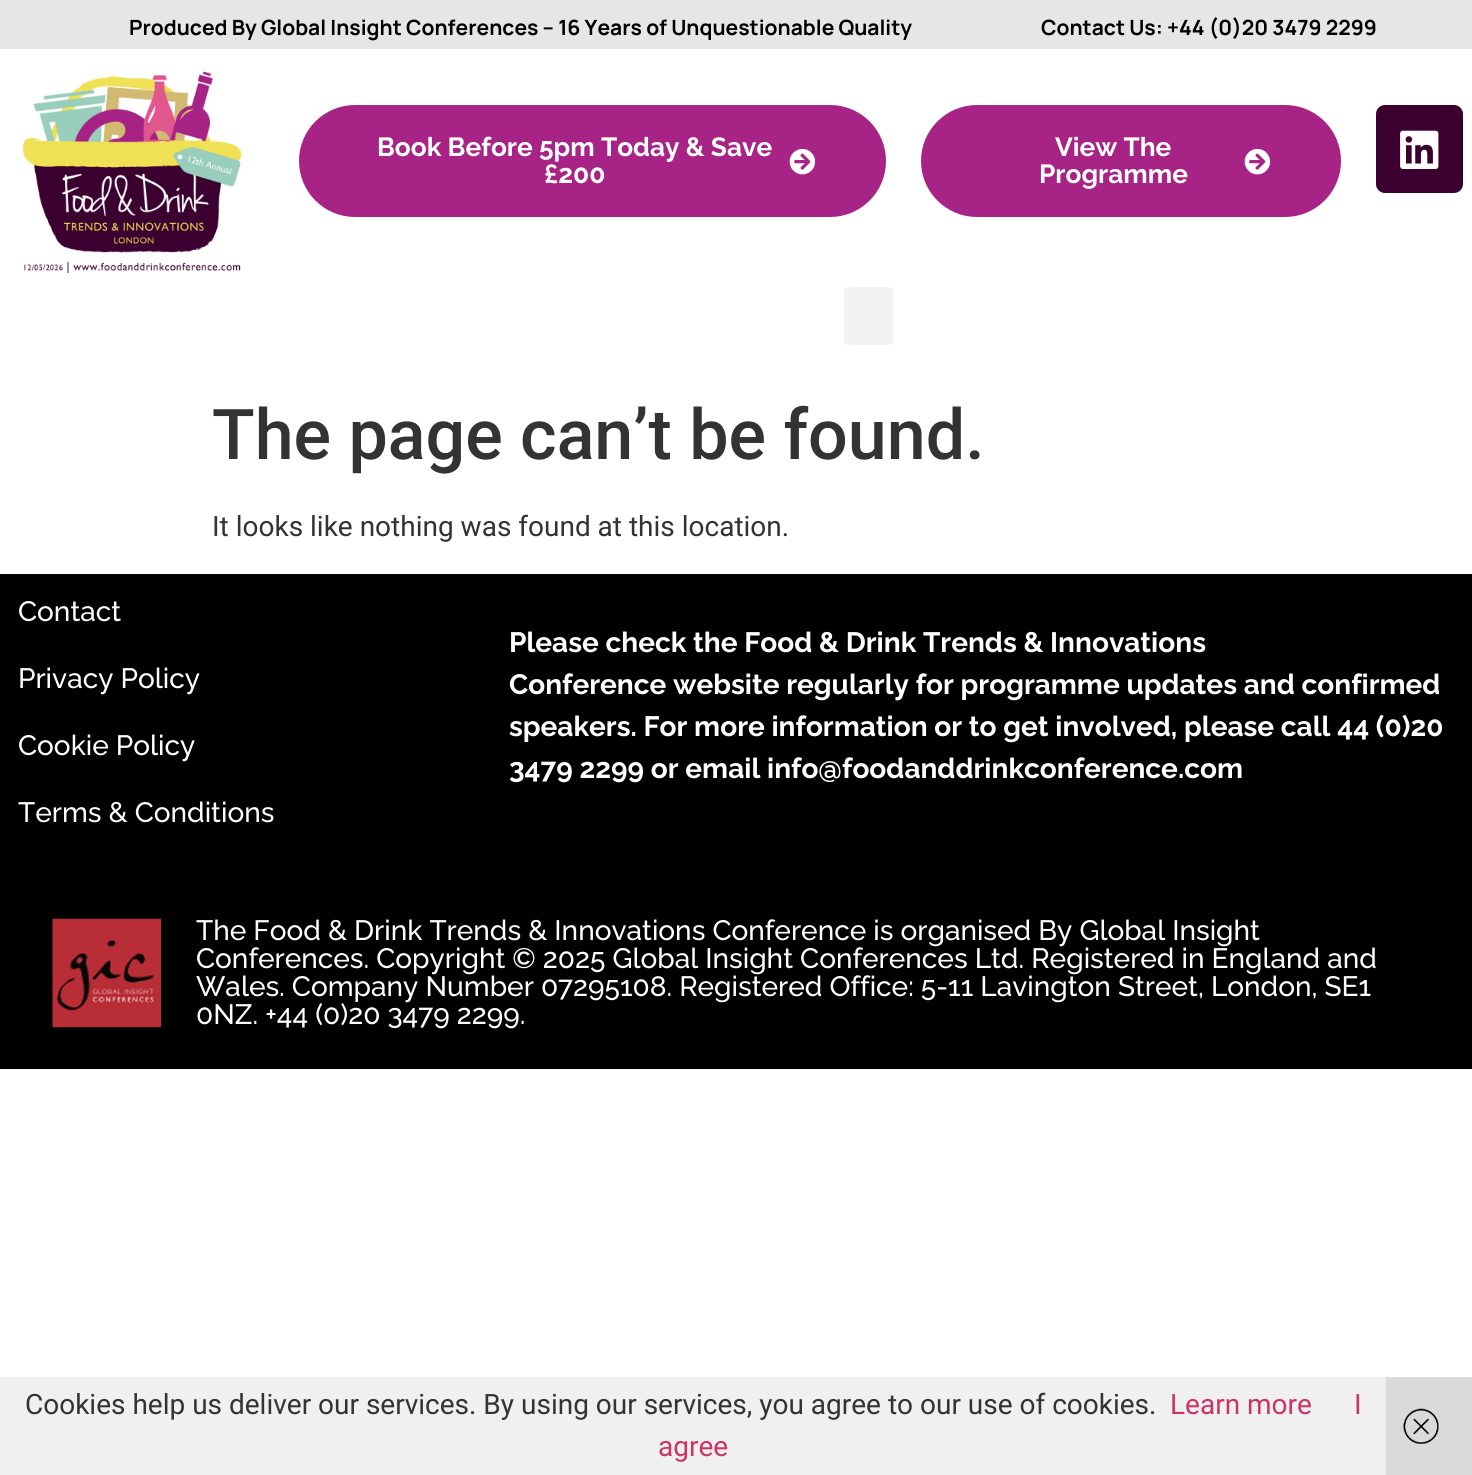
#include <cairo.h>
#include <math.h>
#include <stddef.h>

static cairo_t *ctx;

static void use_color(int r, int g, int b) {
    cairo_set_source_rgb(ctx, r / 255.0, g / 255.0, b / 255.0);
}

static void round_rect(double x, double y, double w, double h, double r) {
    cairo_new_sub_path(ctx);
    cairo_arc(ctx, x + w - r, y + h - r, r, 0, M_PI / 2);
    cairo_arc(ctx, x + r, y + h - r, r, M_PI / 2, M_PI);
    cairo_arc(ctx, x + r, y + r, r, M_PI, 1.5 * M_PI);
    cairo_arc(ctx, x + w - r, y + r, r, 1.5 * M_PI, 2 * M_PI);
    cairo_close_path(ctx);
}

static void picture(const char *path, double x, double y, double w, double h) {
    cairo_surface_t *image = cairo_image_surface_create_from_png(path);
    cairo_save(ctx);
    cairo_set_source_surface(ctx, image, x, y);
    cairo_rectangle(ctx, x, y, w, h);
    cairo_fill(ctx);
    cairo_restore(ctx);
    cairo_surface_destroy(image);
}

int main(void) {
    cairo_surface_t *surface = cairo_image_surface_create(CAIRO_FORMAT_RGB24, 1472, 1475);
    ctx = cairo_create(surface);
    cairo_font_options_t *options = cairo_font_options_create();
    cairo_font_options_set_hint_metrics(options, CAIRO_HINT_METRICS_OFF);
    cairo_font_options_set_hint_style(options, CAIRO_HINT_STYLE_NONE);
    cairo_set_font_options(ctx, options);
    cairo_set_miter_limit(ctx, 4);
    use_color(255, 255, 255);
    cairo_paint(ctx);
    use_color(230, 230, 230);
    cairo_rectangle(ctx, 0, 0, 1472, 49);
    cairo_fill(ctx);
    cairo_select_font_face(ctx, "Manrope", CAIRO_FONT_SLANT_NORMAL, CAIRO_FONT_WEIGHT_BOLD);
    cairo_set_font_size(ctx, 21);
    use_color(0, 0, 0);
    cairo_move_to(ctx, 129, 35);
    cairo_show_text(ctx, "Produced By Global Insight Conferences – 16 Years of Unquestionable Quality");
    cairo_move_to(ctx, 1041, 35);
    cairo_show_text(ctx, "Contact Us: +44 (0)20 3479 2299");
    picture("img1.png", 23, 71, 219, 202);
    use_color(167, 35, 134);
    round_rect(299, 105, 587, 112, 56);
    cairo_fill(ctx);
    cairo_select_font_face(ctx, "Raleway", CAIRO_FONT_SLANT_NORMAL, CAIRO_FONT_WEIGHT_BOLD);
    cairo_set_font_size(ctx, 26.25);
    use_color(255, 255, 255);
    cairo_move_to(ctx, 377, 156);
    cairo_show_text(ctx, "Book Before 5pm Today & Save");
    cairo_move_to(ctx, 544, 183);
    cairo_show_text(ctx, "£200");
    picture("img2.png", 789, 148, 27, 27);
    use_color(167, 35, 134);
    round_rect(921, 105, 420, 112, 56);
    cairo_fill(ctx);
    use_color(255, 255, 255);
    cairo_move_to(ctx, 1055, 156);
    cairo_show_text(ctx, "View The");
    cairo_move_to(ctx, 1039, 183);
    cairo_show_text(ctx, "Programme");
    picture("img2.png", 1244, 148, 27, 27);
    use_color(59, 0, 48);
    round_rect(1376, 105, 87, 88, 9);
    cairo_fill(ctx);
    picture("img3.png", 1400, 130, 39, 39);
    use_color(242, 242, 242);
    round_rect(844, 287, 49, 58, 5);
    cairo_fill(ctx);
    cairo_select_font_face(ctx, "Roboto Medium", CAIRO_FONT_SLANT_NORMAL, CAIRO_FONT_WEIGHT_NORMAL);
    cairo_set_font_size(ctx, 70);
    use_color(51, 51, 51);
    cairo_move_to(ctx, 212, 459);
    cairo_show_text(ctx, "The page can’t be found.");
    cairo_select_font_face(ctx, "Roboto", CAIRO_FONT_SLANT_NORMAL, CAIRO_FONT_WEIGHT_NORMAL);
    cairo_set_font_size(ctx, 28);
    cairo_move_to(ctx, 212, 536);
    cairo_show_text(ctx, "It looks like nothing was found at this location.");
    use_color(0, 0, 0);
    cairo_rectangle(ctx, 0, 574, 1472, 495);
    cairo_fill(ctx);
    cairo_select_font_face(ctx, "Raleway Medium", CAIRO_FONT_SLANT_NORMAL, CAIRO_FONT_WEIGHT_NORMAL);
    use_color(255, 255, 255);
    cairo_move_to(ctx, 18, 621);
    cairo_show_text(ctx, "Contact");
    cairo_move_to(ctx, 18, 688);
    cairo_show_text(ctx, "Privacy Policy");
    cairo_move_to(ctx, 18, 755);
    cairo_show_text(ctx, "Cookie Policy");
    cairo_move_to(ctx, 18, 822);
    cairo_show_text(ctx, "Terms & Conditions");
    cairo_select_font_face(ctx, "Raleway", CAIRO_FONT_SLANT_NORMAL, CAIRO_FONT_WEIGHT_BOLD);
    cairo_move_to(ctx, 509, 652);
    cairo_show_text(ctx, "Please check the Food & Drink Trends & Innovations");
    cairo_move_to(ctx, 509, 694);
    cairo_show_text(ctx, "Conference website regularly for programme updates and confirmed");
    cairo_move_to(ctx, 509, 736);
    cairo_show_text(ctx, "speakers. For more information or to get involved, please call 44 (0)20");
    cairo_move_to(ctx, 509, 778);
    cairo_show_text(ctx, "3479 2299 or email info@foodanddrinkconference.com");
    picture("img4.png", 52, 918, 109, 110);
    cairo_select_font_face(ctx, "Raleway Medium", CAIRO_FONT_SLANT_NORMAL, CAIRO_FONT_WEIGHT_NORMAL);
    cairo_move_to(ctx, 196, 940);
    cairo_show_text(ctx, "The Food & Drink Trends & Innovations Conference is organised By Global Insight");
    cairo_move_to(ctx, 196, 968);
    cairo_show_text(ctx, "Conferences. Copyright © 2025 Global Insight Conferences Ltd. Registered in England and");
    cairo_move_to(ctx, 196, 996);
    cairo_show_text(ctx, "Wales. Company Number 07295108. Registered Office: 5-11 Lavington Street, London, SE1");
    cairo_move_to(ctx, 196, 1024);
    cairo_show_text(ctx, "0NZ. +44 (0)20 3479 2299.");
    use_color(240, 240, 240);
    cairo_rectangle(ctx, 0, 1377, 1386, 98);
    cairo_fill(ctx);
    cairo_select_font_face(ctx, "Roboto", CAIRO_FONT_SLANT_NORMAL, CAIRO_FONT_WEIGHT_NORMAL);
    use_color(51, 51, 51);
    cairo_move_to(ctx, 25, 1414);
    cairo_show_text(ctx, "Cookies help us deliver our services. By using our services, you agree to our use of cookies.");
    use_color(204, 51, 102);
    cairo_move_to(ctx, 1170, 1414);
    cairo_show_text(ctx, "Learn more");
    cairo_move_to(ctx, 1354, 1414);
    cairo_show_text(ctx, "I");
    cairo_move_to(ctx, 658, 1456);
    cairo_show_text(ctx, "agree");
    use_color(218, 218, 218);
    cairo_rectangle(ctx, 1386, 1377, 86, 98);
    cairo_fill(ctx);
    picture("img5.png", 1403, 1408, 36, 36);
    cairo_surface_write_to_png(surface, "result.png");
    cairo_font_options_destroy(options);
    cairo_destroy(ctx);
    cairo_surface_destroy(surface);
    return 0;
}
